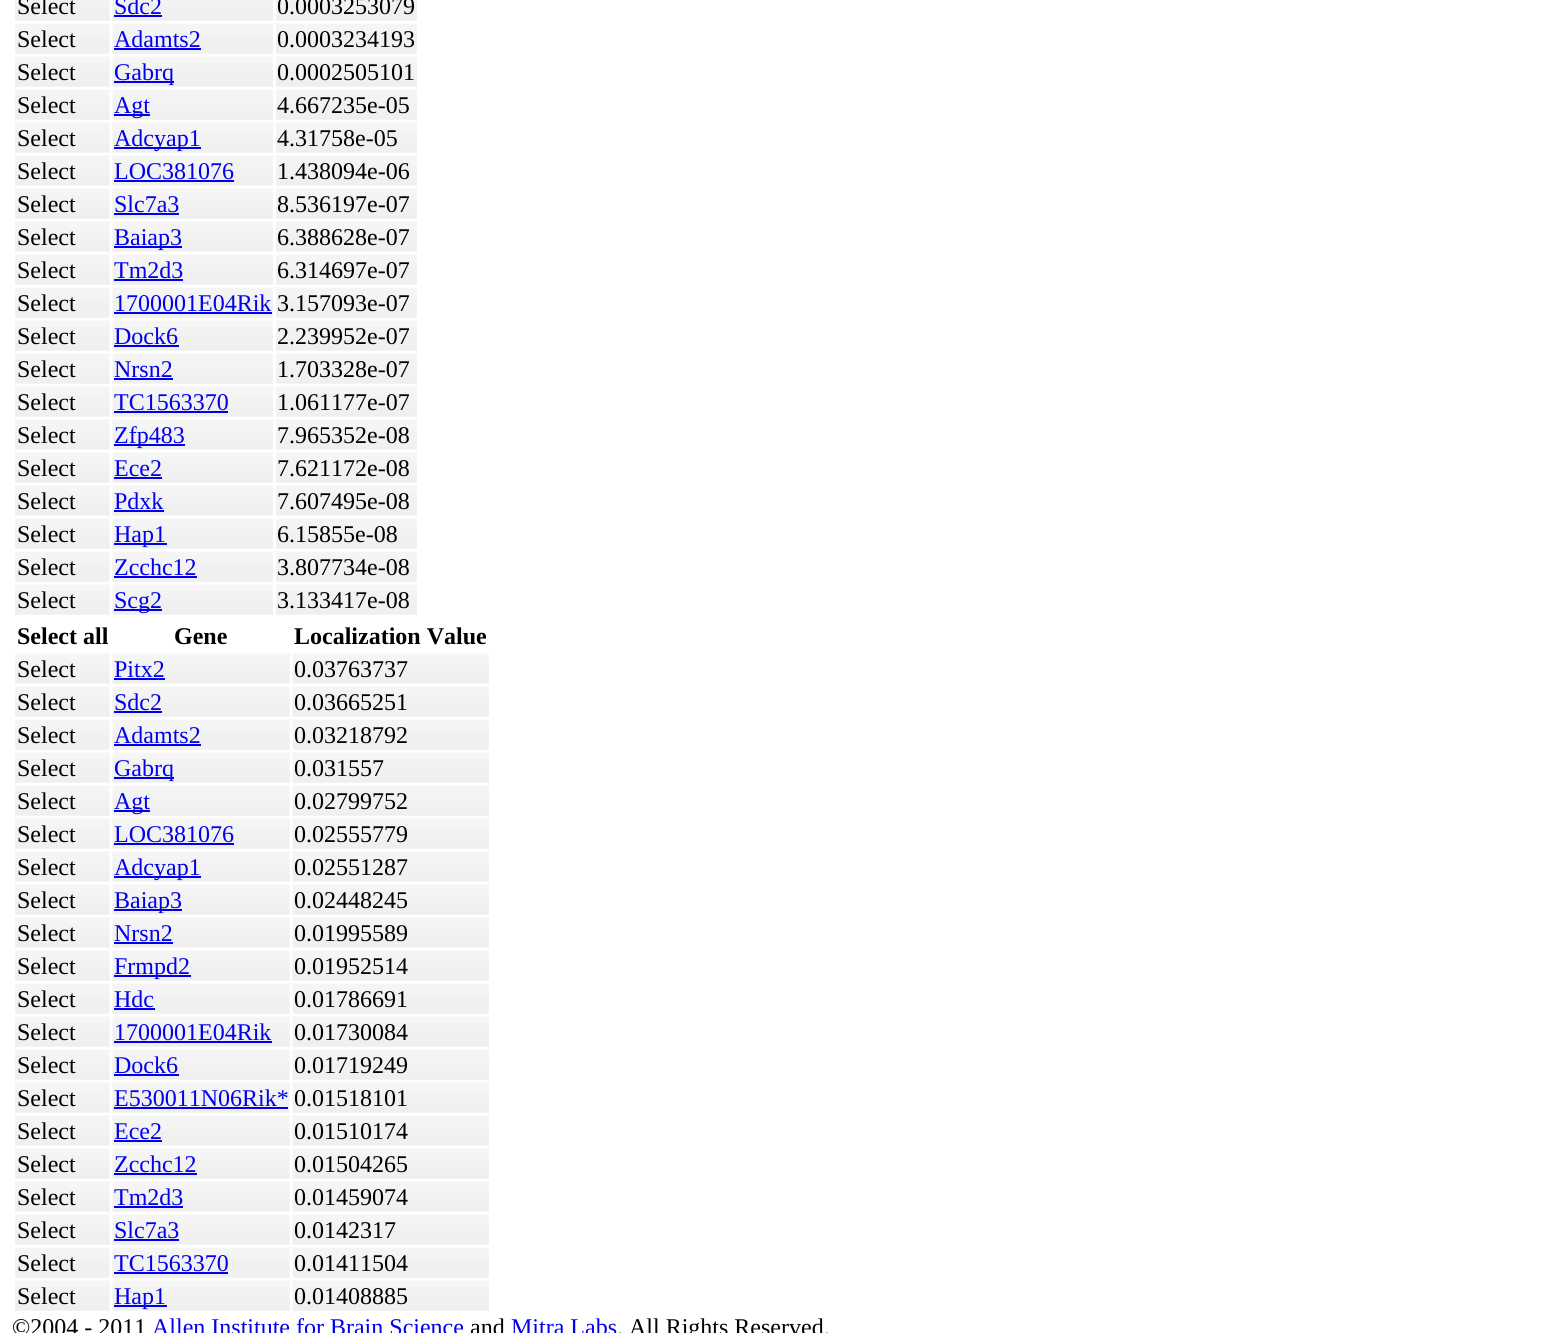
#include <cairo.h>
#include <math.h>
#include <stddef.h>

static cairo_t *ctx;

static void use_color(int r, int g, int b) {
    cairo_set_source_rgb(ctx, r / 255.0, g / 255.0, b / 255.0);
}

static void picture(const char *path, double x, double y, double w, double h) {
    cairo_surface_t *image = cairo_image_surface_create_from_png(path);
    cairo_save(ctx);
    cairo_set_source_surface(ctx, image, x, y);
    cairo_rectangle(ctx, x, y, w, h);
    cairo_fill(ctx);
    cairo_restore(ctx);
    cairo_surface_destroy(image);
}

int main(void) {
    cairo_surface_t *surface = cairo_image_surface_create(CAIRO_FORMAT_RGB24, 1567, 1333);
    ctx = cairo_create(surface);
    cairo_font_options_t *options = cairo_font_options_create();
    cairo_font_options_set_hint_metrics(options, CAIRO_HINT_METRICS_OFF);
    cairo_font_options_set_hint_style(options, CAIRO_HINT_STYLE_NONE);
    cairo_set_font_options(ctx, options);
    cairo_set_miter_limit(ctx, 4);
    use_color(255, 255, 255);
    cairo_paint(ctx);
    use_color(248, 248, 248);
    cairo_rectangle(ctx, 15, 0, 95, 21);
    cairo_fill(ctx);
    picture("img1.png", 15, 0, 95, 21);
    cairo_select_font_face(ctx, "Liberation Serif", CAIRO_FONT_SLANT_NORMAL, CAIRO_FONT_WEIGHT_NORMAL);
    cairo_set_font_size(ctx, 24);
    use_color(0, 0, 0);
    cairo_move_to(ctx, 17, 14);
    cairo_show_text(ctx, "Select");
    use_color(248, 248, 248);
    cairo_rectangle(ctx, 113, 20, 160, 1);
    cairo_fill(ctx);
    picture("img2.png", 112, 0, 161, 21);
    use_color(0, 0, 238);
    cairo_move_to(ctx, 114, 14);
    cairo_show_text(ctx, "Sdc2");
    cairo_rectangle(ctx, 114, 15, 48, 2);
    cairo_fill(ctx);
    use_color(248, 248, 248);
    cairo_rectangle(ctx, 276, 20, 141, 1);
    cairo_fill(ctx);
    picture("img3.png", 276, 0, 141, 21);
    use_color(0, 0, 0);
    cairo_move_to(ctx, 277, 14);
    cairo_show_text(ctx, "0.0003253079");
    use_color(248, 248, 248);
    cairo_rectangle(ctx, 15, 24, 95, 30);
    cairo_fill(ctx);
    picture("img4.png", 15, 23, 95, 31);
    use_color(0, 0, 0);
    cairo_move_to(ctx, 17, 47);
    cairo_show_text(ctx, "Select");
    use_color(248, 248, 248);
    cairo_rectangle(ctx, 113, 53, 160, 1);
    cairo_fill(ctx);
    picture("img5.png", 112, 23, 161, 31);
    use_color(0, 0, 238);
    cairo_move_to(ctx, 114, 47);
    cairo_show_text(ctx, "Adamts2");
    cairo_rectangle(ctx, 114, 48, 87, 2);
    cairo_fill(ctx);
    use_color(248, 248, 248);
    cairo_rectangle(ctx, 276, 53, 141, 1);
    cairo_fill(ctx);
    picture("img6.png", 276, 23, 141, 31);
    use_color(0, 0, 0);
    cairo_move_to(ctx, 277, 47);
    cairo_show_text(ctx, "0.0003234193");
    use_color(248, 248, 248);
    cairo_rectangle(ctx, 15, 57, 95, 30);
    cairo_fill(ctx);
    picture("img4.png", 15, 56, 95, 31);
    use_color(0, 0, 0);
    cairo_move_to(ctx, 17, 80);
    cairo_show_text(ctx, "Select");
    use_color(248, 248, 248);
    cairo_rectangle(ctx, 113, 86, 160, 1);
    cairo_fill(ctx);
    picture("img5.png", 112, 56, 161, 31);
    use_color(0, 0, 238);
    cairo_rectangle(ctx, 114, 81, 60, 2);
    cairo_fill(ctx);
    cairo_move_to(ctx, 114, 80);
    cairo_show_text(ctx, "Gabrq");
    use_color(248, 248, 248);
    cairo_rectangle(ctx, 276, 86, 141, 1);
    cairo_fill(ctx);
    picture("img6.png", 276, 56, 141, 31);
    use_color(0, 0, 0);
    cairo_move_to(ctx, 277, 80);
    cairo_show_text(ctx, "0.0002505101");
    use_color(248, 248, 248);
    cairo_rectangle(ctx, 15, 90, 95, 30);
    cairo_fill(ctx);
    picture("img4.png", 15, 89, 95, 31);
    use_color(0, 0, 0);
    cairo_move_to(ctx, 17, 113);
    cairo_show_text(ctx, "Select");
    use_color(248, 248, 248);
    cairo_rectangle(ctx, 113, 119, 160, 1);
    cairo_fill(ctx);
    picture("img5.png", 112, 89, 161, 31);
    use_color(0, 0, 238);
    cairo_rectangle(ctx, 114, 114, 36, 2);
    cairo_fill(ctx);
    cairo_move_to(ctx, 114, 113);
    cairo_show_text(ctx, "Agt");
    use_color(248, 248, 248);
    cairo_rectangle(ctx, 276, 119, 141, 1);
    cairo_fill(ctx);
    picture("img6.png", 276, 89, 141, 31);
    use_color(0, 0, 0);
    cairo_move_to(ctx, 277, 113);
    cairo_show_text(ctx, "4.667235e-05");
    use_color(248, 248, 248);
    cairo_rectangle(ctx, 15, 123, 95, 30);
    cairo_fill(ctx);
    picture("img4.png", 15, 122, 95, 31);
    use_color(0, 0, 0);
    cairo_move_to(ctx, 17, 146);
    cairo_show_text(ctx, "Select");
    use_color(248, 248, 248);
    cairo_rectangle(ctx, 113, 152, 160, 1);
    cairo_fill(ctx);
    picture("img5.png", 112, 122, 161, 31);
    use_color(0, 0, 238);
    cairo_rectangle(ctx, 114, 147, 87, 2);
    cairo_fill(ctx);
    cairo_move_to(ctx, 114, 146);
    cairo_show_text(ctx, "Adcyap1");
    use_color(248, 248, 248);
    cairo_rectangle(ctx, 276, 152, 141, 1);
    cairo_fill(ctx);
    picture("img6.png", 276, 122, 141, 31);
    use_color(0, 0, 0);
    cairo_move_to(ctx, 277, 146);
    cairo_show_text(ctx, "4.31758e-05");
    use_color(248, 248, 248);
    cairo_rectangle(ctx, 15, 156, 95, 30);
    cairo_fill(ctx);
    picture("img7.png", 15, 155, 95, 31);
    use_color(0, 0, 0);
    cairo_move_to(ctx, 17, 179);
    cairo_show_text(ctx, "Select");
    use_color(248, 248, 248);
    cairo_rectangle(ctx, 113, 185, 160, 1);
    cairo_fill(ctx);
    picture("img8.png", 112, 155, 161, 31);
    use_color(0, 0, 238);
    cairo_move_to(ctx, 114, 179);
    cairo_show_text(ctx, "LOC381076");
    cairo_rectangle(ctx, 114, 180, 120, 2);
    cairo_fill(ctx);
    use_color(248, 248, 248);
    cairo_rectangle(ctx, 276, 185, 141, 1);
    cairo_fill(ctx);
    picture("img9.png", 276, 155, 141, 31);
    use_color(0, 0, 0);
    cairo_move_to(ctx, 277, 179);
    cairo_show_text(ctx, "1.438094e-06");
    use_color(248, 248, 248);
    cairo_rectangle(ctx, 15, 189, 95, 30);
    cairo_fill(ctx);
    picture("img4.png", 15, 188, 95, 31);
    use_color(0, 0, 0);
    cairo_move_to(ctx, 17, 212);
    cairo_show_text(ctx, "Select");
    use_color(248, 248, 248);
    cairo_rectangle(ctx, 113, 218, 160, 1);
    cairo_fill(ctx);
    picture("img5.png", 112, 188, 161, 31);
    use_color(0, 0, 238);
    cairo_move_to(ctx, 114, 212);
    cairo_show_text(ctx, "Slc7a3");
    cairo_rectangle(ctx, 114, 213, 65, 2);
    cairo_fill(ctx);
    use_color(248, 248, 248);
    cairo_rectangle(ctx, 276, 218, 141, 1);
    cairo_fill(ctx);
    picture("img6.png", 276, 188, 141, 31);
    use_color(0, 0, 0);
    cairo_move_to(ctx, 277, 212);
    cairo_show_text(ctx, "8.536197e-07");
    use_color(248, 248, 248);
    cairo_rectangle(ctx, 15, 222, 95, 30);
    cairo_fill(ctx);
    picture("img4.png", 15, 221, 95, 31);
    use_color(0, 0, 0);
    cairo_move_to(ctx, 17, 245);
    cairo_show_text(ctx, "Select");
    use_color(248, 248, 248);
    cairo_rectangle(ctx, 113, 251, 160, 1);
    cairo_fill(ctx);
    picture("img5.png", 112, 221, 161, 31);
    use_color(0, 0, 238);
    cairo_rectangle(ctx, 114, 246, 68, 2);
    cairo_fill(ctx);
    cairo_move_to(ctx, 114, 245);
    cairo_show_text(ctx, "Baiap3");
    use_color(248, 248, 248);
    cairo_rectangle(ctx, 276, 251, 141, 1);
    cairo_fill(ctx);
    picture("img6.png", 276, 221, 141, 31);
    use_color(0, 0, 0);
    cairo_move_to(ctx, 277, 245);
    cairo_show_text(ctx, "6.388628e-07");
    use_color(248, 248, 248);
    cairo_rectangle(ctx, 15, 255, 95, 30);
    cairo_fill(ctx);
    picture("img4.png", 15, 254, 95, 31);
    use_color(0, 0, 0);
    cairo_move_to(ctx, 17, 278);
    cairo_show_text(ctx, "Select");
    use_color(248, 248, 248);
    cairo_rectangle(ctx, 113, 284, 160, 1);
    cairo_fill(ctx);
    picture("img5.png", 112, 254, 161, 31);
    use_color(0, 0, 238);
    cairo_move_to(ctx, 114, 278);
    cairo_show_text(ctx, "Tm2d3");
    cairo_rectangle(ctx, 114, 279, 69, 2);
    cairo_fill(ctx);
    use_color(248, 248, 248);
    cairo_rectangle(ctx, 276, 284, 141, 1);
    cairo_fill(ctx);
    picture("img6.png", 276, 254, 141, 31);
    use_color(0, 0, 0);
    cairo_move_to(ctx, 277, 278);
    cairo_show_text(ctx, "6.314697e-07");
    use_color(248, 248, 248);
    cairo_rectangle(ctx, 15, 288, 95, 30);
    cairo_fill(ctx);
    picture("img4.png", 15, 287, 95, 31);
    use_color(0, 0, 0);
    cairo_move_to(ctx, 17, 311);
    cairo_show_text(ctx, "Select");
    use_color(248, 248, 248);
    cairo_rectangle(ctx, 113, 317, 160, 1);
    cairo_fill(ctx);
    picture("img5.png", 112, 287, 161, 31);
    use_color(0, 0, 238);
    cairo_move_to(ctx, 114, 311);
    cairo_show_text(ctx, "1700001E04Rik");
    cairo_rectangle(ctx, 114, 312, 158, 2);
    cairo_fill(ctx);
    use_color(248, 248, 248);
    cairo_rectangle(ctx, 276, 317, 141, 1);
    cairo_fill(ctx);
    picture("img6.png", 276, 287, 141, 31);
    use_color(0, 0, 0);
    cairo_move_to(ctx, 277, 311);
    cairo_show_text(ctx, "3.157093e-07");
    use_color(248, 248, 248);
    cairo_rectangle(ctx, 15, 321, 95, 30);
    cairo_fill(ctx);
    picture("img4.png", 15, 320, 95, 31);
    use_color(0, 0, 0);
    cairo_move_to(ctx, 17, 344);
    cairo_show_text(ctx, "Select");
    use_color(248, 248, 248);
    cairo_rectangle(ctx, 113, 350, 160, 1);
    cairo_fill(ctx);
    picture("img5.png", 112, 320, 161, 31);
    use_color(0, 0, 238);
    cairo_move_to(ctx, 114, 344);
    cairo_show_text(ctx, "Dock6");
    cairo_rectangle(ctx, 114, 345, 65, 2);
    cairo_fill(ctx);
    use_color(248, 248, 248);
    cairo_rectangle(ctx, 276, 350, 141, 1);
    cairo_fill(ctx);
    picture("img6.png", 276, 320, 141, 31);
    use_color(0, 0, 0);
    cairo_move_to(ctx, 277, 344);
    cairo_show_text(ctx, "2.239952e-07");
    use_color(248, 248, 248);
    cairo_rectangle(ctx, 15, 354, 95, 30);
    cairo_fill(ctx);
    picture("img4.png", 15, 353, 95, 31);
    use_color(0, 0, 0);
    cairo_move_to(ctx, 17, 377);
    cairo_show_text(ctx, "Select");
    use_color(248, 248, 248);
    cairo_rectangle(ctx, 113, 383, 160, 1);
    cairo_fill(ctx);
    picture("img5.png", 112, 353, 161, 31);
    use_color(0, 0, 238);
    cairo_move_to(ctx, 114, 377);
    cairo_show_text(ctx, "Nrsn2");
    cairo_rectangle(ctx, 114, 378, 59, 2);
    cairo_fill(ctx);
    use_color(248, 248, 248);
    cairo_rectangle(ctx, 276, 383, 141, 1);
    cairo_fill(ctx);
    picture("img6.png", 276, 353, 141, 31);
    use_color(0, 0, 0);
    cairo_move_to(ctx, 277, 377);
    cairo_show_text(ctx, "1.703328e-07");
    use_color(248, 248, 248);
    cairo_rectangle(ctx, 15, 387, 95, 30);
    cairo_fill(ctx);
    picture("img4.png", 15, 386, 95, 31);
    use_color(0, 0, 0);
    cairo_move_to(ctx, 17, 410);
    cairo_show_text(ctx, "Select");
    use_color(248, 248, 248);
    cairo_rectangle(ctx, 113, 416, 160, 1);
    cairo_fill(ctx);
    picture("img5.png", 112, 386, 161, 31);
    use_color(0, 0, 238);
    cairo_move_to(ctx, 114, 410);
    cairo_show_text(ctx, "TC1563370");
    cairo_rectangle(ctx, 114, 411, 114, 2);
    cairo_fill(ctx);
    use_color(248, 248, 248);
    cairo_rectangle(ctx, 276, 416, 141, 1);
    cairo_fill(ctx);
    picture("img6.png", 276, 386, 141, 31);
    use_color(0, 0, 0);
    cairo_move_to(ctx, 277, 410);
    cairo_show_text(ctx, "1.061177e-07");
    use_color(248, 248, 248);
    cairo_rectangle(ctx, 15, 420, 95, 30);
    cairo_fill(ctx);
    picture("img4.png", 15, 419, 95, 31);
    use_color(0, 0, 0);
    cairo_move_to(ctx, 17, 443);
    cairo_show_text(ctx, "Select");
    use_color(248, 248, 248);
    cairo_rectangle(ctx, 113, 449, 160, 1);
    cairo_fill(ctx);
    picture("img5.png", 112, 419, 161, 31);
    use_color(0, 0, 238);
    cairo_rectangle(ctx, 114, 444, 71, 2);
    cairo_fill(ctx);
    cairo_move_to(ctx, 114, 443);
    cairo_show_text(ctx, "Zfp483");
    use_color(248, 248, 248);
    cairo_rectangle(ctx, 276, 449, 141, 1);
    cairo_fill(ctx);
    picture("img6.png", 276, 419, 141, 31);
    use_color(0, 0, 0);
    cairo_move_to(ctx, 277, 443);
    cairo_show_text(ctx, "7.965352e-08");
    use_color(248, 248, 248);
    cairo_rectangle(ctx, 15, 453, 95, 30);
    cairo_fill(ctx);
    picture("img4.png", 15, 452, 95, 31);
    use_color(0, 0, 0);
    cairo_move_to(ctx, 17, 476);
    cairo_show_text(ctx, "Select");
    use_color(248, 248, 248);
    cairo_rectangle(ctx, 113, 482, 160, 1);
    cairo_fill(ctx);
    picture("img5.png", 112, 452, 161, 31);
    use_color(0, 0, 238);
    cairo_move_to(ctx, 114, 476);
    cairo_show_text(ctx, "Ece2");
    cairo_rectangle(ctx, 114, 477, 48, 2);
    cairo_fill(ctx);
    use_color(248, 248, 248);
    cairo_rectangle(ctx, 276, 482, 141, 1);
    cairo_fill(ctx);
    picture("img6.png", 276, 452, 141, 31);
    use_color(0, 0, 0);
    cairo_move_to(ctx, 277, 476);
    cairo_show_text(ctx, "7.621172e-08");
    use_color(248, 248, 248);
    cairo_rectangle(ctx, 15, 486, 95, 30);
    cairo_fill(ctx);
    picture("img4.png", 15, 485, 95, 31);
    use_color(0, 0, 0);
    cairo_move_to(ctx, 17, 509);
    cairo_show_text(ctx, "Select");
    use_color(248, 248, 248);
    cairo_rectangle(ctx, 113, 515, 160, 1);
    cairo_fill(ctx);
    picture("img5.png", 112, 485, 161, 31);
    use_color(0, 0, 238);
    cairo_move_to(ctx, 114, 509);
    cairo_show_text(ctx, "Pdxk");
    cairo_rectangle(ctx, 114, 510, 50, 2);
    cairo_fill(ctx);
    use_color(248, 248, 248);
    cairo_rectangle(ctx, 276, 515, 141, 1);
    cairo_fill(ctx);
    picture("img6.png", 276, 485, 141, 31);
    use_color(0, 0, 0);
    cairo_move_to(ctx, 277, 509);
    cairo_show_text(ctx, "7.607495e-08");
    use_color(248, 248, 248);
    cairo_rectangle(ctx, 15, 519, 95, 30);
    cairo_fill(ctx);
    picture("img4.png", 15, 518, 95, 31);
    use_color(0, 0, 0);
    cairo_move_to(ctx, 17, 542);
    cairo_show_text(ctx, "Select");
    use_color(248, 248, 248);
    cairo_rectangle(ctx, 113, 548, 160, 1);
    cairo_fill(ctx);
    picture("img5.png", 112, 518, 161, 31);
    use_color(0, 0, 238);
    cairo_rectangle(ctx, 114, 543, 53, 2);
    cairo_fill(ctx);
    cairo_move_to(ctx, 114, 542);
    cairo_show_text(ctx, "Hap1");
    use_color(248, 248, 248);
    cairo_rectangle(ctx, 276, 548, 141, 1);
    cairo_fill(ctx);
    picture("img6.png", 276, 518, 141, 31);
    use_color(0, 0, 0);
    cairo_move_to(ctx, 277, 542);
    cairo_show_text(ctx, "6.15855e-08");
    use_color(248, 248, 248);
    cairo_rectangle(ctx, 15, 552, 95, 30);
    cairo_fill(ctx);
    picture("img4.png", 15, 551, 95, 31);
    use_color(0, 0, 0);
    cairo_move_to(ctx, 17, 575);
    cairo_show_text(ctx, "Select");
    use_color(248, 248, 248);
    cairo_rectangle(ctx, 113, 581, 160, 1);
    cairo_fill(ctx);
    picture("img5.png", 112, 551, 161, 31);
    use_color(0, 0, 238);
    cairo_move_to(ctx, 114, 575);
    cairo_show_text(ctx, "Zcchc12");
    cairo_rectangle(ctx, 114, 576, 83, 2);
    cairo_fill(ctx);
    use_color(248, 248, 248);
    cairo_rectangle(ctx, 276, 581, 141, 1);
    cairo_fill(ctx);
    picture("img6.png", 276, 551, 141, 31);
    use_color(0, 0, 0);
    cairo_move_to(ctx, 277, 575);
    cairo_show_text(ctx, "3.807734e-08");
    use_color(248, 248, 248);
    cairo_rectangle(ctx, 15, 585, 95, 30);
    cairo_fill(ctx);
    picture("img4.png", 15, 584, 95, 31);
    use_color(0, 0, 0);
    cairo_move_to(ctx, 17, 608);
    cairo_show_text(ctx, "Select");
    use_color(248, 248, 248);
    cairo_rectangle(ctx, 113, 614, 160, 1);
    cairo_fill(ctx);
    picture("img5.png", 112, 584, 161, 31);
    use_color(0, 0, 238);
    cairo_rectangle(ctx, 114, 609, 48, 2);
    cairo_fill(ctx);
    cairo_move_to(ctx, 114, 608);
    cairo_show_text(ctx, "Scg2");
    use_color(248, 248, 248);
    cairo_rectangle(ctx, 276, 614, 141, 1);
    cairo_fill(ctx);
    picture("img6.png", 276, 584, 141, 31);
    use_color(0, 0, 0);
    cairo_move_to(ctx, 277, 608);
    cairo_show_text(ctx, "3.133417e-08");
    cairo_select_font_face(ctx, "Liberation Serif", CAIRO_FONT_SLANT_NORMAL, CAIRO_FONT_WEIGHT_BOLD);
    cairo_move_to(ctx, 17, 644);
    cairo_show_text(ctx, "Select all");
    cairo_move_to(ctx, 174, 644);
    cairo_show_text(ctx, "Gene");
    cairo_move_to(ctx, 294, 644);
    cairo_show_text(ctx, "Localization Value");
    use_color(248, 248, 248);
    cairo_rectangle(ctx, 15, 654, 95, 30);
    cairo_fill(ctx);
    picture("img4.png", 15, 653, 95, 31);
    cairo_select_font_face(ctx, "Liberation Serif", CAIRO_FONT_SLANT_NORMAL, CAIRO_FONT_WEIGHT_NORMAL);
    use_color(0, 0, 0);
    cairo_move_to(ctx, 17, 677);
    cairo_show_text(ctx, "Select");
    use_color(248, 248, 248);
    cairo_rectangle(ctx, 113, 654, 177, 30);
    cairo_fill(ctx);
    picture("img10.png", 112, 653, 178, 31);
    use_color(0, 0, 238);
    cairo_move_to(ctx, 114, 677);
    cairo_show_text(ctx, "Pitx2");
    cairo_rectangle(ctx, 114, 678, 51, 2);
    cairo_fill(ctx);
    use_color(248, 248, 248);
    cairo_rectangle(ctx, 293, 683, 196, 1);
    cairo_fill(ctx);
    picture("img11.png", 292, 653, 197, 31);
    use_color(0, 0, 0);
    cairo_move_to(ctx, 294, 677);
    cairo_show_text(ctx, "0.03763737");
    use_color(248, 248, 248);
    cairo_rectangle(ctx, 15, 687, 95, 30);
    cairo_fill(ctx);
    picture("img4.png", 15, 686, 95, 31);
    use_color(0, 0, 0);
    cairo_move_to(ctx, 17, 710);
    cairo_show_text(ctx, "Select");
    use_color(248, 248, 248);
    cairo_rectangle(ctx, 113, 687, 177, 30);
    cairo_fill(ctx);
    picture("img10.png", 112, 686, 178, 31);
    use_color(0, 0, 238);
    cairo_move_to(ctx, 114, 710);
    cairo_show_text(ctx, "Sdc2");
    cairo_rectangle(ctx, 114, 711, 48, 2);
    cairo_fill(ctx);
    use_color(248, 248, 248);
    cairo_rectangle(ctx, 293, 716, 196, 1);
    cairo_fill(ctx);
    picture("img11.png", 292, 686, 197, 31);
    use_color(0, 0, 0);
    cairo_move_to(ctx, 294, 710);
    cairo_show_text(ctx, "0.03665251");
    use_color(248, 248, 248);
    cairo_rectangle(ctx, 15, 720, 95, 30);
    cairo_fill(ctx);
    picture("img4.png", 15, 719, 95, 31);
    use_color(0, 0, 0);
    cairo_move_to(ctx, 17, 743);
    cairo_show_text(ctx, "Select");
    use_color(248, 248, 248);
    cairo_rectangle(ctx, 113, 720, 177, 30);
    cairo_fill(ctx);
    picture("img10.png", 112, 719, 178, 31);
    use_color(0, 0, 238);
    cairo_move_to(ctx, 114, 743);
    cairo_show_text(ctx, "Adamts2");
    cairo_rectangle(ctx, 114, 744, 87, 2);
    cairo_fill(ctx);
    use_color(248, 248, 248);
    cairo_rectangle(ctx, 293, 749, 196, 1);
    cairo_fill(ctx);
    picture("img11.png", 292, 719, 197, 31);
    use_color(0, 0, 0);
    cairo_move_to(ctx, 294, 743);
    cairo_show_text(ctx, "0.03218792");
    use_color(248, 248, 248);
    cairo_rectangle(ctx, 15, 753, 95, 30);
    cairo_fill(ctx);
    picture("img4.png", 15, 752, 95, 31);
    use_color(0, 0, 0);
    cairo_move_to(ctx, 17, 776);
    cairo_show_text(ctx, "Select");
    use_color(248, 248, 248);
    cairo_rectangle(ctx, 113, 753, 177, 30);
    cairo_fill(ctx);
    picture("img10.png", 112, 752, 178, 31);
    use_color(0, 0, 238);
    cairo_rectangle(ctx, 114, 777, 60, 2);
    cairo_fill(ctx);
    cairo_move_to(ctx, 114, 776);
    cairo_show_text(ctx, "Gabrq");
    use_color(248, 248, 248);
    cairo_rectangle(ctx, 293, 782, 196, 1);
    cairo_fill(ctx);
    picture("img11.png", 292, 752, 197, 31);
    use_color(0, 0, 0);
    cairo_move_to(ctx, 294, 776);
    cairo_show_text(ctx, "0.031557");
    use_color(248, 248, 248);
    cairo_rectangle(ctx, 15, 786, 95, 30);
    cairo_fill(ctx);
    picture("img4.png", 15, 785, 95, 31);
    use_color(0, 0, 0);
    cairo_move_to(ctx, 17, 809);
    cairo_show_text(ctx, "Select");
    use_color(248, 248, 248);
    cairo_rectangle(ctx, 113, 786, 177, 30);
    cairo_fill(ctx);
    picture("img10.png", 112, 785, 178, 31);
    use_color(0, 0, 238);
    cairo_rectangle(ctx, 114, 810, 36, 2);
    cairo_fill(ctx);
    cairo_move_to(ctx, 114, 809);
    cairo_show_text(ctx, "Agt");
    use_color(248, 248, 248);
    cairo_rectangle(ctx, 293, 815, 196, 1);
    cairo_fill(ctx);
    picture("img11.png", 292, 785, 197, 31);
    use_color(0, 0, 0);
    cairo_move_to(ctx, 294, 809);
    cairo_show_text(ctx, "0.02799752");
    use_color(248, 248, 248);
    cairo_rectangle(ctx, 15, 819, 95, 30);
    cairo_fill(ctx);
    picture("img4.png", 15, 818, 95, 31);
    use_color(0, 0, 0);
    cairo_move_to(ctx, 17, 842);
    cairo_show_text(ctx, "Select");
    use_color(248, 248, 248);
    cairo_rectangle(ctx, 113, 819, 177, 30);
    cairo_fill(ctx);
    picture("img10.png", 112, 818, 178, 31);
    use_color(0, 0, 238);
    cairo_move_to(ctx, 114, 842);
    cairo_show_text(ctx, "LOC381076");
    cairo_rectangle(ctx, 114, 843, 120, 2);
    cairo_fill(ctx);
    use_color(248, 248, 248);
    cairo_rectangle(ctx, 293, 848, 196, 1);
    cairo_fill(ctx);
    picture("img11.png", 292, 818, 197, 31);
    use_color(0, 0, 0);
    cairo_move_to(ctx, 294, 842);
    cairo_show_text(ctx, "0.02555779");
    use_color(248, 248, 248);
    cairo_rectangle(ctx, 15, 852, 95, 30);
    cairo_fill(ctx);
    picture("img4.png", 15, 851, 95, 31);
    use_color(0, 0, 0);
    cairo_move_to(ctx, 17, 875);
    cairo_show_text(ctx, "Select");
    use_color(248, 248, 248);
    cairo_rectangle(ctx, 113, 852, 177, 30);
    cairo_fill(ctx);
    picture("img10.png", 112, 851, 178, 31);
    use_color(0, 0, 238);
    cairo_rectangle(ctx, 114, 876, 87, 2);
    cairo_fill(ctx);
    cairo_move_to(ctx, 114, 875);
    cairo_show_text(ctx, "Adcyap1");
    use_color(248, 248, 248);
    cairo_rectangle(ctx, 293, 881, 196, 1);
    cairo_fill(ctx);
    picture("img11.png", 292, 851, 197, 31);
    use_color(0, 0, 0);
    cairo_move_to(ctx, 294, 875);
    cairo_show_text(ctx, "0.02551287");
    use_color(248, 248, 248);
    cairo_rectangle(ctx, 15, 885, 95, 30);
    cairo_fill(ctx);
    picture("img4.png", 15, 884, 95, 31);
    use_color(0, 0, 0);
    cairo_move_to(ctx, 17, 908);
    cairo_show_text(ctx, "Select");
    use_color(248, 248, 248);
    cairo_rectangle(ctx, 113, 885, 177, 30);
    cairo_fill(ctx);
    picture("img10.png", 112, 884, 178, 31);
    use_color(0, 0, 238);
    cairo_rectangle(ctx, 114, 909, 68, 2);
    cairo_fill(ctx);
    cairo_move_to(ctx, 114, 908);
    cairo_show_text(ctx, "Baiap3");
    use_color(248, 248, 248);
    cairo_rectangle(ctx, 293, 914, 196, 1);
    cairo_fill(ctx);
    picture("img11.png", 292, 884, 197, 31);
    use_color(0, 0, 0);
    cairo_move_to(ctx, 294, 908);
    cairo_show_text(ctx, "0.02448245");
    use_color(248, 248, 248);
    cairo_rectangle(ctx, 15, 918, 95, 30);
    cairo_fill(ctx);
    picture("img7.png", 15, 917, 95, 31);
    use_color(0, 0, 0);
    cairo_move_to(ctx, 17, 941);
    cairo_show_text(ctx, "Select");
    use_color(248, 248, 248);
    cairo_rectangle(ctx, 113, 918, 177, 30);
    cairo_fill(ctx);
    picture("img12.png", 112, 917, 178, 31);
    use_color(0, 0, 238);
    cairo_move_to(ctx, 114, 941);
    cairo_show_text(ctx, "Nrsn2");
    cairo_rectangle(ctx, 114, 942, 59, 2);
    cairo_fill(ctx);
    use_color(248, 248, 248);
    cairo_rectangle(ctx, 293, 947, 196, 1);
    cairo_fill(ctx);
    picture("img13.png", 292, 917, 197, 31);
    use_color(0, 0, 0);
    cairo_move_to(ctx, 294, 941);
    cairo_show_text(ctx, "0.01995589");
    use_color(248, 248, 248);
    cairo_rectangle(ctx, 15, 951, 95, 30);
    cairo_fill(ctx);
    picture("img4.png", 15, 950, 95, 31);
    use_color(0, 0, 0);
    cairo_move_to(ctx, 17, 974);
    cairo_show_text(ctx, "Select");
    use_color(248, 248, 248);
    cairo_rectangle(ctx, 113, 951, 177, 30);
    cairo_fill(ctx);
    picture("img10.png", 112, 950, 178, 31);
    use_color(0, 0, 238);
    cairo_rectangle(ctx, 114, 975, 77, 2);
    cairo_fill(ctx);
    cairo_move_to(ctx, 114, 974);
    cairo_show_text(ctx, "Frmpd2");
    use_color(248, 248, 248);
    cairo_rectangle(ctx, 293, 980, 196, 1);
    cairo_fill(ctx);
    picture("img11.png", 292, 950, 197, 31);
    use_color(0, 0, 0);
    cairo_move_to(ctx, 294, 974);
    cairo_show_text(ctx, "0.01952514");
    use_color(248, 248, 248);
    cairo_rectangle(ctx, 15, 984, 95, 30);
    cairo_fill(ctx);
    picture("img4.png", 15, 983, 95, 31);
    use_color(0, 0, 0);
    cairo_move_to(ctx, 17, 1007);
    cairo_show_text(ctx, "Select");
    use_color(248, 248, 248);
    cairo_rectangle(ctx, 113, 984, 177, 30);
    cairo_fill(ctx);
    picture("img10.png", 112, 983, 178, 31);
    use_color(0, 0, 238);
    cairo_move_to(ctx, 114, 1007);
    cairo_show_text(ctx, "Hdc");
    cairo_rectangle(ctx, 114, 1008, 41, 2);
    cairo_fill(ctx);
    use_color(248, 248, 248);
    cairo_rectangle(ctx, 293, 1013, 196, 1);
    cairo_fill(ctx);
    picture("img11.png", 292, 983, 197, 31);
    use_color(0, 0, 0);
    cairo_move_to(ctx, 294, 1007);
    cairo_show_text(ctx, "0.01786691");
    use_color(248, 248, 248);
    cairo_rectangle(ctx, 15, 1017, 95, 30);
    cairo_fill(ctx);
    picture("img4.png", 15, 1016, 95, 31);
    use_color(0, 0, 0);
    cairo_move_to(ctx, 17, 1040);
    cairo_show_text(ctx, "Select");
    use_color(248, 248, 248);
    cairo_rectangle(ctx, 113, 1017, 177, 30);
    cairo_fill(ctx);
    picture("img10.png", 112, 1016, 178, 31);
    use_color(0, 0, 238);
    cairo_move_to(ctx, 114, 1040);
    cairo_show_text(ctx, "1700001E04Rik");
    cairo_rectangle(ctx, 114, 1041, 158, 2);
    cairo_fill(ctx);
    use_color(248, 248, 248);
    cairo_rectangle(ctx, 293, 1046, 196, 1);
    cairo_fill(ctx);
    picture("img11.png", 292, 1016, 197, 31);
    use_color(0, 0, 0);
    cairo_move_to(ctx, 294, 1040);
    cairo_show_text(ctx, "0.01730084");
    use_color(248, 248, 248);
    cairo_rectangle(ctx, 15, 1050, 95, 30);
    cairo_fill(ctx);
    picture("img4.png", 15, 1049, 95, 31);
    use_color(0, 0, 0);
    cairo_move_to(ctx, 17, 1073);
    cairo_show_text(ctx, "Select");
    use_color(248, 248, 248);
    cairo_rectangle(ctx, 113, 1050, 177, 30);
    cairo_fill(ctx);
    picture("img10.png", 112, 1049, 178, 31);
    use_color(0, 0, 238);
    cairo_move_to(ctx, 114, 1073);
    cairo_show_text(ctx, "Dock6");
    cairo_rectangle(ctx, 114, 1074, 65, 2);
    cairo_fill(ctx);
    use_color(248, 248, 248);
    cairo_rectangle(ctx, 293, 1079, 196, 1);
    cairo_fill(ctx);
    picture("img11.png", 292, 1049, 197, 31);
    use_color(0, 0, 0);
    cairo_move_to(ctx, 294, 1073);
    cairo_show_text(ctx, "0.01719249");
    use_color(248, 248, 248);
    cairo_rectangle(ctx, 15, 1083, 95, 30);
    cairo_fill(ctx);
    picture("img4.png", 15, 1082, 95, 31);
    use_color(0, 0, 0);
    cairo_move_to(ctx, 17, 1106);
    cairo_show_text(ctx, "Select");
    use_color(248, 248, 248);
    cairo_rectangle(ctx, 113, 1083, 177, 30);
    cairo_fill(ctx);
    picture("img10.png", 112, 1082, 178, 31);
    use_color(0, 0, 238);
    cairo_move_to(ctx, 114, 1106);
    cairo_show_text(ctx, "E530011N06Rik*");
    cairo_rectangle(ctx, 114, 1107, 174, 2);
    cairo_fill(ctx);
    use_color(248, 248, 248);
    cairo_rectangle(ctx, 293, 1112, 196, 1);
    cairo_fill(ctx);
    picture("img11.png", 292, 1082, 197, 31);
    use_color(0, 0, 0);
    cairo_move_to(ctx, 294, 1106);
    cairo_show_text(ctx, "0.01518101");
    use_color(248, 248, 248);
    cairo_rectangle(ctx, 15, 1116, 95, 30);
    cairo_fill(ctx);
    picture("img4.png", 15, 1115, 95, 31);
    use_color(0, 0, 0);
    cairo_move_to(ctx, 17, 1139);
    cairo_show_text(ctx, "Select");
    use_color(248, 248, 248);
    cairo_rectangle(ctx, 113, 1116, 177, 30);
    cairo_fill(ctx);
    picture("img10.png", 112, 1115, 178, 31);
    use_color(0, 0, 238);
    cairo_move_to(ctx, 114, 1139);
    cairo_show_text(ctx, "Ece2");
    cairo_rectangle(ctx, 114, 1140, 48, 2);
    cairo_fill(ctx);
    use_color(248, 248, 248);
    cairo_rectangle(ctx, 293, 1145, 196, 1);
    cairo_fill(ctx);
    picture("img11.png", 292, 1115, 197, 31);
    use_color(0, 0, 0);
    cairo_move_to(ctx, 294, 1139);
    cairo_show_text(ctx, "0.01510174");
    use_color(248, 248, 248);
    cairo_rectangle(ctx, 15, 1149, 95, 30);
    cairo_fill(ctx);
    picture("img4.png", 15, 1148, 95, 31);
    use_color(0, 0, 0);
    cairo_move_to(ctx, 17, 1172);
    cairo_show_text(ctx, "Select");
    use_color(248, 248, 248);
    cairo_rectangle(ctx, 113, 1149, 177, 30);
    cairo_fill(ctx);
    picture("img10.png", 112, 1148, 178, 31);
    use_color(0, 0, 238);
    cairo_move_to(ctx, 114, 1172);
    cairo_show_text(ctx, "Zcchc12");
    cairo_rectangle(ctx, 114, 1173, 83, 2);
    cairo_fill(ctx);
    use_color(248, 248, 248);
    cairo_rectangle(ctx, 293, 1178, 196, 1);
    cairo_fill(ctx);
    picture("img11.png", 292, 1148, 197, 31);
    use_color(0, 0, 0);
    cairo_move_to(ctx, 294, 1172);
    cairo_show_text(ctx, "0.01504265");
    use_color(248, 248, 248);
    cairo_rectangle(ctx, 15, 1182, 95, 30);
    cairo_fill(ctx);
    picture("img4.png", 15, 1181, 95, 31);
    use_color(0, 0, 0);
    cairo_move_to(ctx, 17, 1205);
    cairo_show_text(ctx, "Select");
    use_color(248, 248, 248);
    cairo_rectangle(ctx, 113, 1182, 177, 30);
    cairo_fill(ctx);
    picture("img10.png", 112, 1181, 178, 31);
    use_color(0, 0, 238);
    cairo_move_to(ctx, 114, 1205);
    cairo_show_text(ctx, "Tm2d3");
    cairo_rectangle(ctx, 114, 1206, 69, 2);
    cairo_fill(ctx);
    use_color(248, 248, 248);
    cairo_rectangle(ctx, 293, 1211, 196, 1);
    cairo_fill(ctx);
    picture("img11.png", 292, 1181, 197, 31);
    use_color(0, 0, 0);
    cairo_move_to(ctx, 294, 1205);
    cairo_show_text(ctx, "0.01459074");
    use_color(248, 248, 248);
    cairo_rectangle(ctx, 15, 1215, 95, 30);
    cairo_fill(ctx);
    picture("img4.png", 15, 1214, 95, 31);
    use_color(0, 0, 0);
    cairo_move_to(ctx, 17, 1238);
    cairo_show_text(ctx, "Select");
    use_color(248, 248, 248);
    cairo_rectangle(ctx, 113, 1215, 177, 30);
    cairo_fill(ctx);
    picture("img10.png", 112, 1214, 178, 31);
    use_color(0, 0, 238);
    cairo_move_to(ctx, 114, 1238);
    cairo_show_text(ctx, "Slc7a3");
    cairo_rectangle(ctx, 114, 1239, 65, 2);
    cairo_fill(ctx);
    use_color(248, 248, 248);
    cairo_rectangle(ctx, 293, 1244, 196, 1);
    cairo_fill(ctx);
    picture("img11.png", 292, 1214, 197, 31);
    use_color(0, 0, 0);
    cairo_move_to(ctx, 294, 1238);
    cairo_show_text(ctx, "0.0142317");
    use_color(248, 248, 248);
    cairo_rectangle(ctx, 15, 1248, 95, 30);
    cairo_fill(ctx);
    picture("img4.png", 15, 1247, 95, 31);
    use_color(0, 0, 0);
    cairo_move_to(ctx, 17, 1271);
    cairo_show_text(ctx, "Select");
    use_color(248, 248, 248);
    cairo_rectangle(ctx, 113, 1248, 177, 30);
    cairo_fill(ctx);
    picture("img10.png", 112, 1247, 178, 31);
    use_color(0, 0, 238);
    cairo_move_to(ctx, 114, 1271);
    cairo_show_text(ctx, "TC1563370");
    cairo_rectangle(ctx, 114, 1272, 114, 2);
    cairo_fill(ctx);
    use_color(248, 248, 248);
    cairo_rectangle(ctx, 293, 1277, 196, 1);
    cairo_fill(ctx);
    picture("img11.png", 292, 1247, 197, 31);
    use_color(0, 0, 0);
    cairo_move_to(ctx, 294, 1271);
    cairo_show_text(ctx, "0.01411504");
    use_color(248, 248, 248);
    cairo_rectangle(ctx, 15, 1281, 95, 30);
    cairo_fill(ctx);
    picture("img4.png", 15, 1280, 95, 31);
    use_color(0, 0, 0);
    cairo_move_to(ctx, 17, 1304);
    cairo_show_text(ctx, "Select");
    use_color(248, 248, 248);
    cairo_rectangle(ctx, 113, 1281, 177, 30);
    cairo_fill(ctx);
    picture("img10.png", 112, 1280, 178, 31);
    use_color(0, 0, 238);
    cairo_rectangle(ctx, 114, 1305, 53, 2);
    cairo_fill(ctx);
    cairo_move_to(ctx, 114, 1304);
    cairo_show_text(ctx, "Hap1");
    use_color(248, 248, 248);
    cairo_rectangle(ctx, 293, 1310, 196, 1);
    cairo_fill(ctx);
    picture("img11.png", 292, 1280, 197, 31);
    use_color(0, 0, 0);
    cairo_move_to(ctx, 294, 1304);
    cairo_show_text(ctx, "0.01408885");
    cairo_move_to(ctx, 12, 1335);
    cairo_show_text(ctx, "©2004 - 2011");
    use_color(0, 0, 238);
    cairo_move_to(ctx, 152, 1335);
    cairo_show_text(ctx, "Allen Institute for Brain Science");
    use_color(0, 0, 0);
    cairo_move_to(ctx, 470, 1335);
    cairo_show_text(ctx, "and");
    use_color(0, 0, 238);
    cairo_move_to(ctx, 511, 1335);
    cairo_show_text(ctx, "Mitra Labs");
    use_color(0, 0, 0);
    cairo_move_to(ctx, 617, 1335);
    cairo_show_text(ctx, ". All Rights Reserved.");
    cairo_surface_write_to_png(surface, "result.png");
    cairo_font_options_destroy(options);
    cairo_destroy(ctx);
    cairo_surface_destroy(surface);
    return 0;
}
